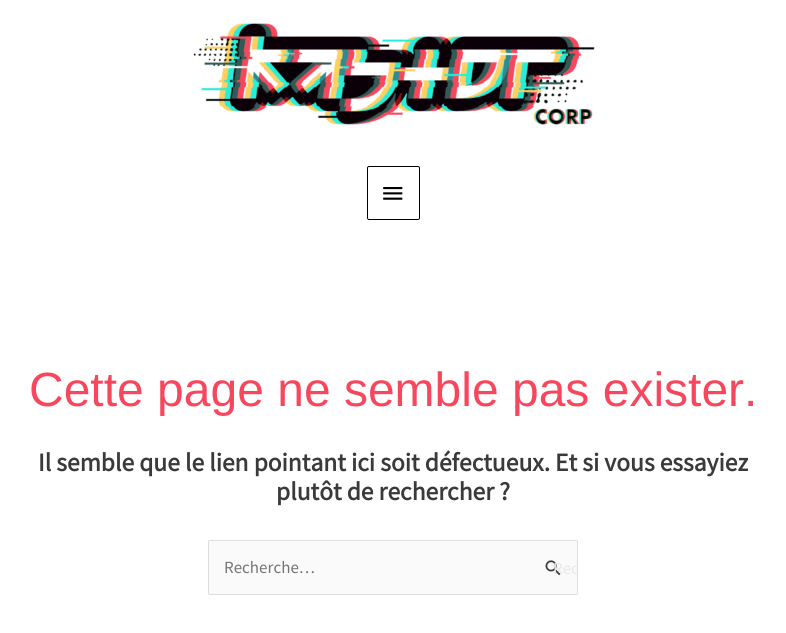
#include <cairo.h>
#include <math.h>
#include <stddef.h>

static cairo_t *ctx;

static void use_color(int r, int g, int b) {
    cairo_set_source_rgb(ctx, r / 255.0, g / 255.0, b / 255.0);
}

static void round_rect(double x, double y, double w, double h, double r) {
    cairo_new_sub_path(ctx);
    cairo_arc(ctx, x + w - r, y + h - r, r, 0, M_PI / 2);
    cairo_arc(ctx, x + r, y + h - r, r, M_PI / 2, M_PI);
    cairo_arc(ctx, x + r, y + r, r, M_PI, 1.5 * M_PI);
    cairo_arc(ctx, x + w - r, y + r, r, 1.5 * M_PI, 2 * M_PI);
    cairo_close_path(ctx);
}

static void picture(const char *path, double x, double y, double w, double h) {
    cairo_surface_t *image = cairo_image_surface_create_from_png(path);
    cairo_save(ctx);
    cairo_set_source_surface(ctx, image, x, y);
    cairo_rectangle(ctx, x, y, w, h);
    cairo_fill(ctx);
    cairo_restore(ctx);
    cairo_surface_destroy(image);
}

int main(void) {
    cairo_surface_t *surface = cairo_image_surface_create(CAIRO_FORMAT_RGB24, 786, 633);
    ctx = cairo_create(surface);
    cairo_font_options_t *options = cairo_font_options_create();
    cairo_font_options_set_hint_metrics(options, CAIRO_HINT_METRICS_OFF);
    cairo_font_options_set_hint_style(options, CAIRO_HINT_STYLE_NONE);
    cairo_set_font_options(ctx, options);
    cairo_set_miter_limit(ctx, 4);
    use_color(255, 255, 255);
    cairo_paint(ctx);
    picture("img1.png", 193, 23, 402, 102);
    round_rect(367.5, 166.5, 52, 53, 1.5);
    use_color(0, 0, 0);
    cairo_set_line_width(ctx, 1);
    cairo_stroke(ctx);
    picture("img2.png", 383, 187, 20, 13);
    cairo_select_font_face(ctx, "Liberation Sans", CAIRO_FONT_SLANT_NORMAL, CAIRO_FONT_WEIGHT_NORMAL);
    cairo_set_font_size(ctx, 48);
    use_color(248, 71, 93);
    cairo_move_to(ctx, 29, 406);
    cairo_show_text(ctx, "Cette page ne semble pas exister.");
    cairo_select_font_face(ctx, "Source Sans Pro", CAIRO_FONT_SLANT_NORMAL, CAIRO_FONT_WEIGHT_BOLD);
    cairo_set_font_size(ctx, 25.5);
    use_color(58, 58, 58);
    cairo_move_to(ctx, 38, 471);
    cairo_show_text(ctx, "Il semble que le lien pointant ici soit défectueux. Et si vous essayiez");
    cairo_move_to(ctx, 276, 500);
    cairo_show_text(ctx, "plutôt de rechercher ?");
    use_color(250, 250, 250);
    round_rect(208.5, 540.5, 369, 54, 1.5);
    cairo_fill_preserve(ctx);
    use_color(221, 221, 221);
    cairo_stroke(ctx);
    cairo_select_font_face(ctx, "Source Sans Pro", CAIRO_FONT_SLANT_NORMAL, CAIRO_FONT_WEIGHT_NORMAL);
    cairo_set_font_size(ctx, 17);
    use_color(117, 117, 117);
    cairo_move_to(ctx, 224, 573);
    cairo_show_text(ctx, "Recherche…");
    picture("img3.png", 545, 560, 16, 16);
    cairo_save(ctx);
    round_rect(533, 540, 45, 58, 2);
    cairo_clip(ctx);
    use_color(232, 232, 232);
    cairo_move_to(ctx, 553, 574);
    cairo_show_text(ctx, "Rec");
    cairo_restore(ctx);
    cairo_surface_write_to_png(surface, "result.png");
    cairo_font_options_destroy(options);
    cairo_destroy(ctx);
    cairo_surface_destroy(surface);
    return 0;
}
